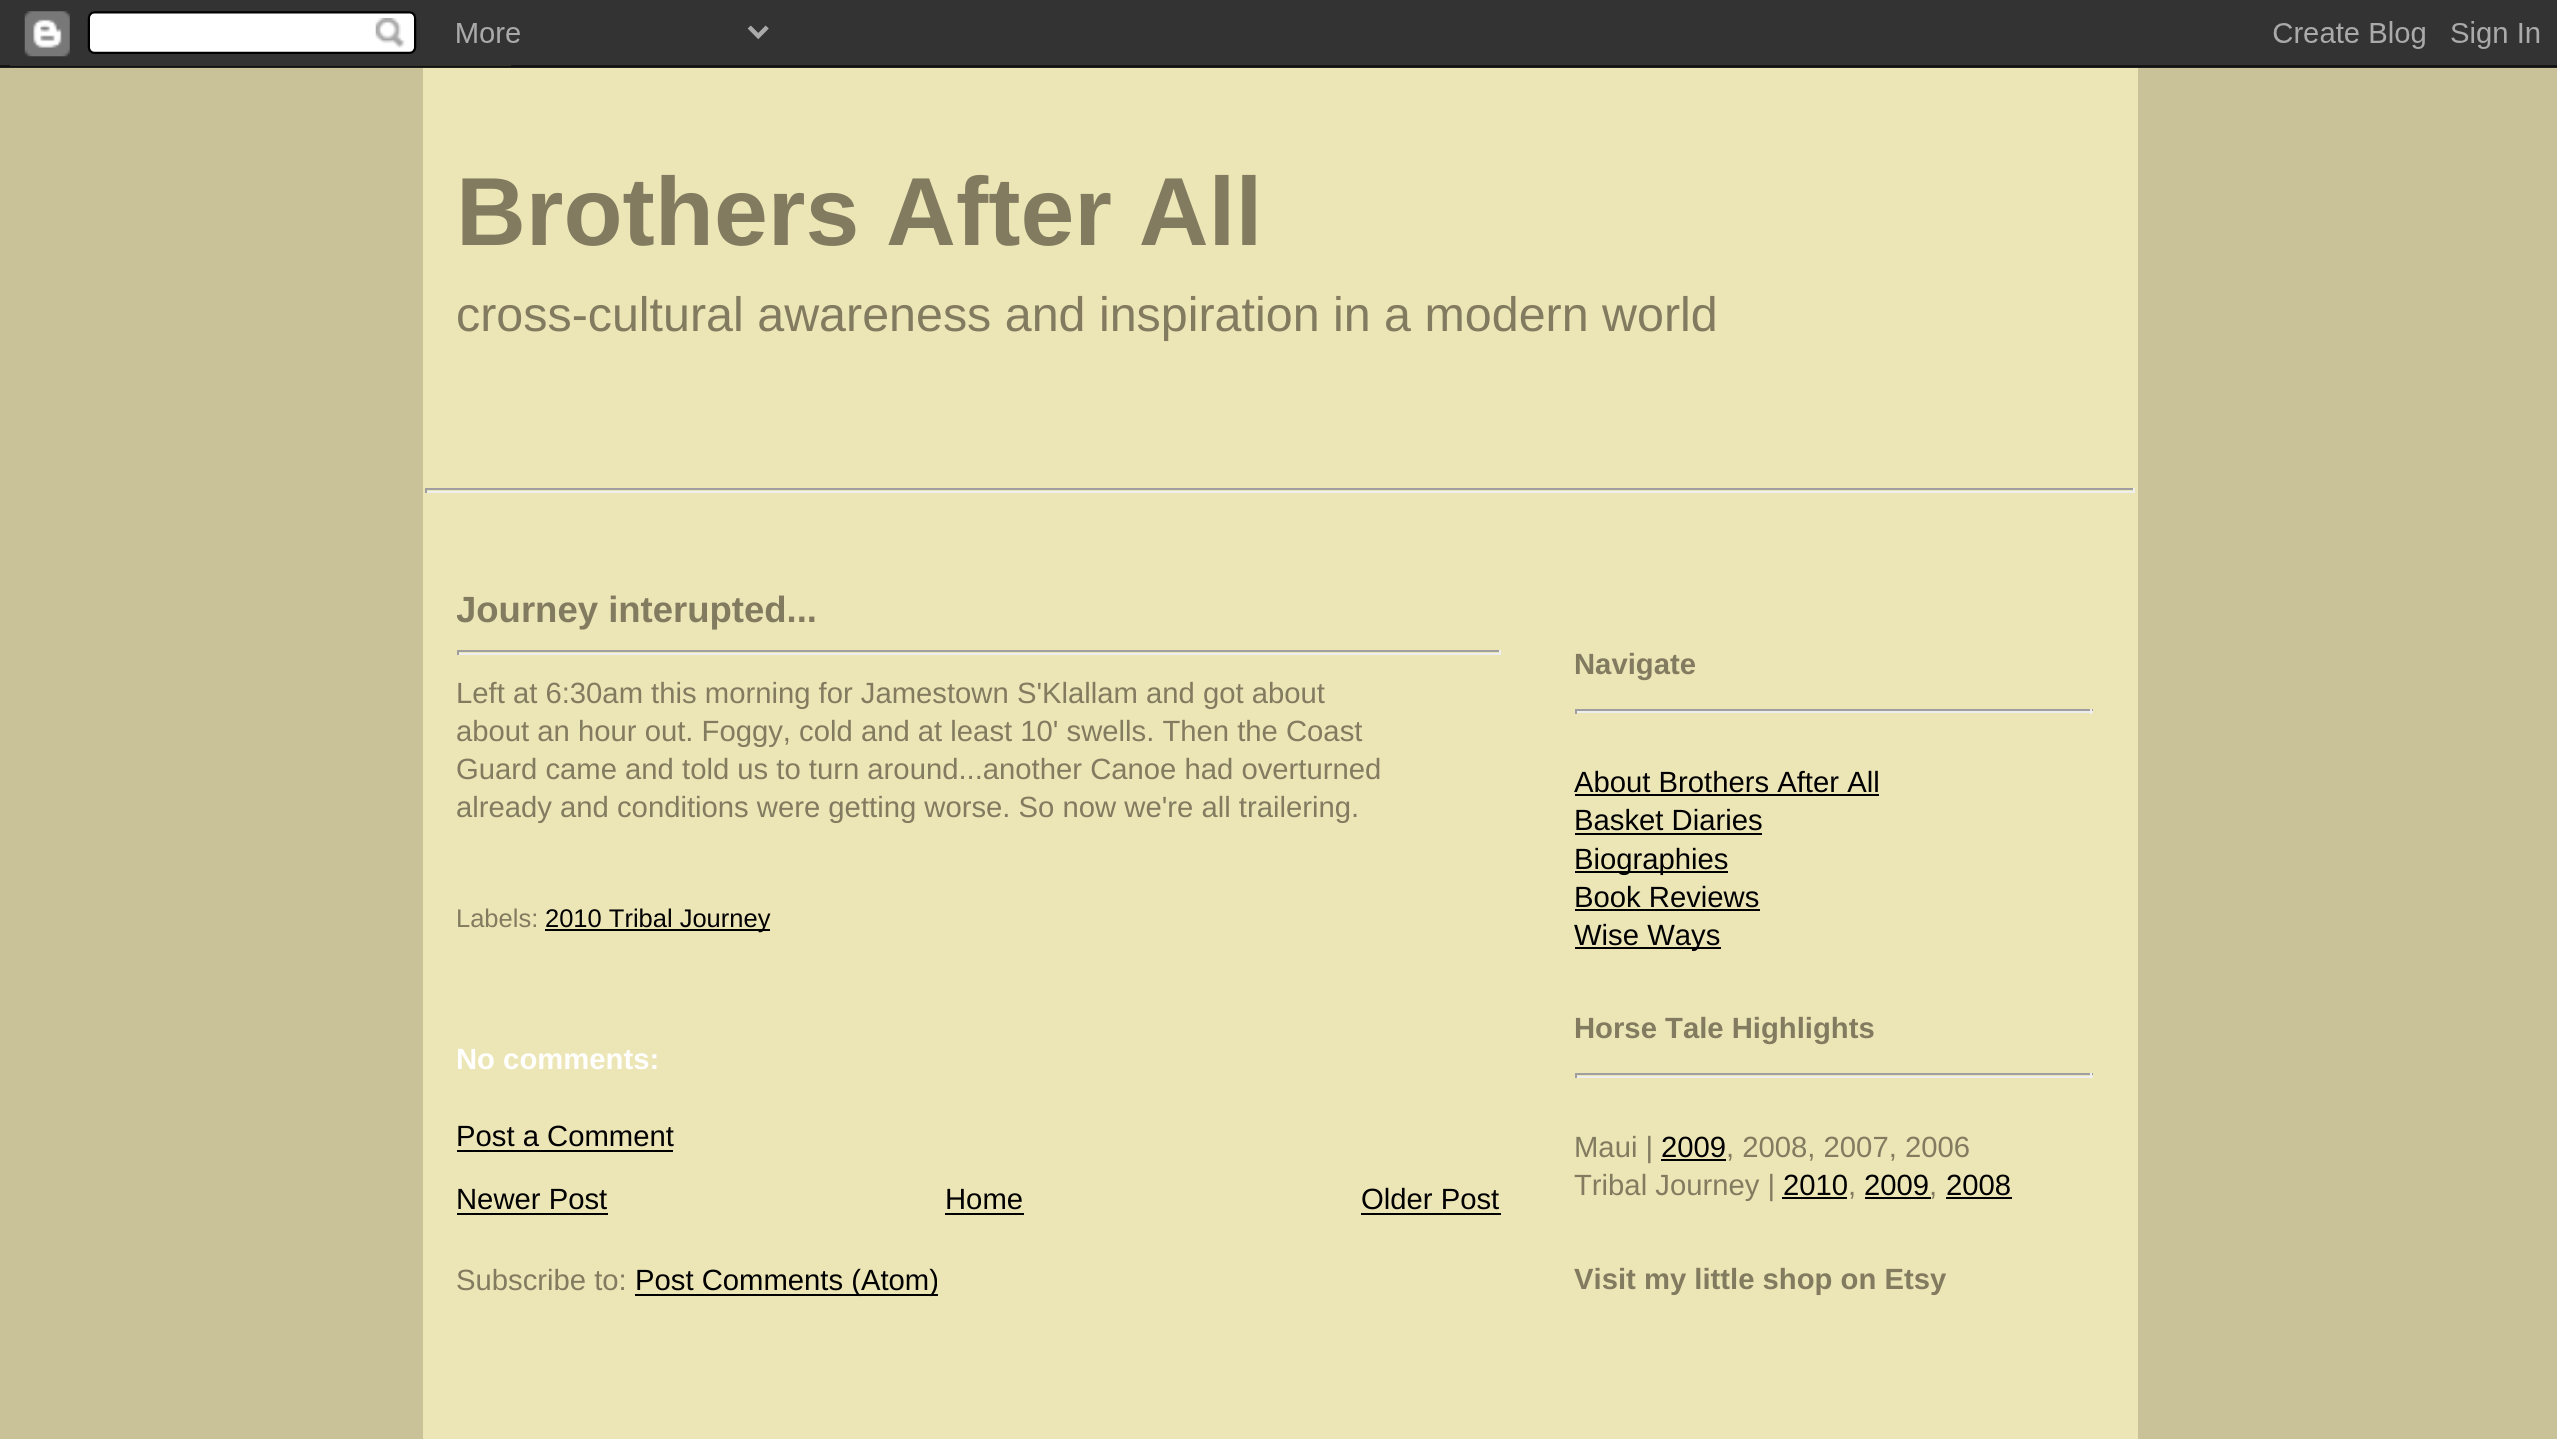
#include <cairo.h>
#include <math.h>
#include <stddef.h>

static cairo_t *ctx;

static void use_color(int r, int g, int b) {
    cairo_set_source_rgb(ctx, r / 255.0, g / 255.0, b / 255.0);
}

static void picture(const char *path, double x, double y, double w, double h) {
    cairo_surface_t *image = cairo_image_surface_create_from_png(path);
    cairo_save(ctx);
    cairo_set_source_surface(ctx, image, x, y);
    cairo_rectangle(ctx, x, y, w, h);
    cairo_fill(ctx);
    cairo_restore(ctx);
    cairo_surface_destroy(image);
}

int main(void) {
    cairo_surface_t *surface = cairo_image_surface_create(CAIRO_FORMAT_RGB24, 2557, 1439);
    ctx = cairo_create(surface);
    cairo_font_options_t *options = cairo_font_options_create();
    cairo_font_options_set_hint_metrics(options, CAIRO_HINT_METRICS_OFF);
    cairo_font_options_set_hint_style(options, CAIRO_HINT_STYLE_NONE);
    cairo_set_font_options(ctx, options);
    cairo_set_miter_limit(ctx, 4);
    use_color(201, 194, 153);
    cairo_paint(ctx);
    picture("img1.png", 0, 0, 2557, 68);
    use_color(236, 229, 182);
    cairo_rectangle(ctx, 423, 68, 1715, 1371);
    cairo_fill(ctx);
    cairo_select_font_face(ctx, "Liberation Sans", CAIRO_FONT_SLANT_NORMAL, CAIRO_FONT_WEIGHT_BOLD);
    cairo_set_font_size(ctx, 96.75);
    use_color(130, 123, 96);
    cairo_move_to(ctx, 456, 245);
    cairo_show_text(ctx, "Brothers After All");
    cairo_select_font_face(ctx, "Liberation Sans", CAIRO_FONT_SLANT_NORMAL, CAIRO_FONT_WEIGHT_NORMAL);
    cairo_set_font_size(ctx, 48.4);
    cairo_move_to(ctx, 456, 331);
    cairo_show_text(ctx, "cross-cultural awareness and inspiration in a modern world");
    use_color(159, 159, 159);
    cairo_rectangle(ctx, 425, 488, 1710, 2);
    cairo_fill(ctx);
    use_color(238, 238, 238);
    cairo_rectangle(ctx, 2133, 488, 2, 5);
    cairo_fill(ctx);
    cairo_rectangle(ctx, 425, 491, 1710, 2);
    cairo_fill(ctx);
    use_color(159, 159, 159);
    cairo_rectangle(ctx, 425, 488, 2, 5);
    cairo_fill(ctx);
    cairo_save(ctx);
    cairo_rectangle(ctx, 457, 592, 1044, 727);
    cairo_clip(ctx);
    cairo_select_font_face(ctx, "Liberation Sans", CAIRO_FONT_SLANT_NORMAL, CAIRO_FONT_WEIGHT_BOLD);
    cairo_set_font_size(ctx, 36.5);
    use_color(130, 123, 96);
    cairo_move_to(ctx, 456, 622);
    cairo_show_text(ctx, "Journey interupted...");
    cairo_restore(ctx);
    cairo_rectangle(ctx, 457, 650, 1044, 2);
    cairo_fill(ctx);
    use_color(238, 238, 238);
    cairo_rectangle(ctx, 1499, 650, 2, 5);
    cairo_fill(ctx);
    cairo_rectangle(ctx, 457, 653, 1044, 2);
    cairo_fill(ctx);
    use_color(159, 159, 159);
    cairo_rectangle(ctx, 457, 650, 2, 5);
    cairo_fill(ctx);
    cairo_set_font_size(ctx, 29.25);
    use_color(130, 123, 96);
    cairo_move_to(ctx, 456, 703);
    cairo_show_text(ctx, "Left at 6:30am this morning for Jamestown S'Klallam and got about");
    cairo_move_to(ctx, 456, 741);
    cairo_show_text(ctx, "about an hour out. Foggy, cold and at least 10' swells. Then the Coast");
    cairo_move_to(ctx, 456, 779);
    cairo_show_text(ctx, "Guard came and told us to turn around...another Canoe had overturned");
    cairo_move_to(ctx, 456, 817);
    cairo_show_text(ctx, "already and conditions were getting worse. So now we're all trailering.");
    cairo_set_font_size(ctx, 25.5);
    cairo_move_to(ctx, 456, 927);
    cairo_show_text(ctx, "Labels:");
    use_color(0, 0, 0);
    cairo_rectangle(ctx, 545, 929, 225, 2);
    cairo_fill(ctx);
    cairo_move_to(ctx, 545, 927);
    cairo_show_text(ctx, "2010 Tribal Journey");
    cairo_select_font_face(ctx, "Liberation Sans", CAIRO_FONT_SLANT_NORMAL, CAIRO_FONT_WEIGHT_BOLD);
    cairo_set_font_size(ctx, 29.25);
    use_color(255, 255, 255);
    cairo_move_to(ctx, 456, 1069);
    cairo_show_text(ctx, "No comments:");
    cairo_select_font_face(ctx, "Liberation Sans", CAIRO_FONT_SLANT_NORMAL, CAIRO_FONT_WEIGHT_NORMAL);
    use_color(0, 0, 0);
    cairo_move_to(ctx, 456, 1146);
    cairo_show_text(ctx, "Post a Comment");
    cairo_rectangle(ctx, 457, 1150, 216, 2);
    cairo_fill(ctx);
    cairo_move_to(ctx, 456, 1209);
    cairo_show_text(ctx, "Newer Post");
    cairo_rectangle(ctx, 457, 1213, 151, 2);
    cairo_fill(ctx);
    cairo_move_to(ctx, 945, 1209);
    cairo_show_text(ctx, "Home");
    cairo_rectangle(ctx, 945, 1213, 79, 2);
    cairo_fill(ctx);
    cairo_move_to(ctx, 1361, 1209);
    cairo_show_text(ctx, "Older Post");
    cairo_rectangle(ctx, 1361, 1213, 140, 2);
    cairo_fill(ctx);
    use_color(130, 123, 96);
    cairo_move_to(ctx, 456, 1290);
    cairo_show_text(ctx, "Subscribe to:");
    use_color(0, 0, 0);
    cairo_rectangle(ctx, 635, 1294, 303, 2);
    cairo_fill(ctx);
    cairo_move_to(ctx, 635, 1290);
    cairo_show_text(ctx, "Post Comments (Atom)");
    cairo_select_font_face(ctx, "Liberation Sans", CAIRO_FONT_SLANT_NORMAL, CAIRO_FONT_WEIGHT_BOLD);
    use_color(130, 123, 96);
    cairo_move_to(ctx, 1574, 674);
    cairo_show_text(ctx, "Navigate");
    use_color(159, 159, 159);
    cairo_rectangle(ctx, 1575, 709, 518, 2);
    cairo_fill(ctx);
    use_color(238, 238, 238);
    cairo_rectangle(ctx, 2090, 709, 2, 5);
    cairo_fill(ctx);
    cairo_rectangle(ctx, 1575, 711, 518, 2);
    cairo_fill(ctx);
    use_color(159, 159, 159);
    cairo_rectangle(ctx, 1575, 709, 2, 5);
    cairo_fill(ctx);
    cairo_select_font_face(ctx, "Liberation Sans", CAIRO_FONT_SLANT_NORMAL, CAIRO_FONT_WEIGHT_NORMAL);
    use_color(0, 0, 0);
    cairo_move_to(ctx, 1574, 792);
    cairo_show_text(ctx, "About Brothers After All");
    cairo_rectangle(ctx, 1575, 794, 304, 2);
    cairo_fill(ctx);
    cairo_move_to(ctx, 1574, 830);
    cairo_show_text(ctx, "Basket Diaries");
    cairo_rectangle(ctx, 1575, 833, 187, 2);
    cairo_fill(ctx);
    cairo_rectangle(ctx, 1575, 871, 153, 2);
    cairo_fill(ctx);
    cairo_move_to(ctx, 1574, 869);
    cairo_show_text(ctx, "Biographies");
    cairo_move_to(ctx, 1574, 907);
    cairo_show_text(ctx, "Book Reviews");
    cairo_rectangle(ctx, 1575, 909, 185, 2);
    cairo_fill(ctx);
    cairo_rectangle(ctx, 1575, 947, 146, 2);
    cairo_fill(ctx);
    cairo_move_to(ctx, 1574, 945);
    cairo_show_text(ctx, "Wise Ways");
    cairo_select_font_face(ctx, "Liberation Sans", CAIRO_FONT_SLANT_NORMAL, CAIRO_FONT_WEIGHT_BOLD);
    use_color(130, 123, 96);
    cairo_move_to(ctx, 1574, 1038);
    cairo_show_text(ctx, "Horse Tale Highlights");
    use_color(159, 159, 159);
    cairo_rectangle(ctx, 1575, 1073, 518, 2);
    cairo_fill(ctx);
    use_color(238, 238, 238);
    cairo_rectangle(ctx, 2090, 1073, 2, 5);
    cairo_fill(ctx);
    cairo_rectangle(ctx, 1575, 1076, 518, 2);
    cairo_fill(ctx);
    use_color(159, 159, 159);
    cairo_rectangle(ctx, 1575, 1073, 2, 5);
    cairo_fill(ctx);
    cairo_select_font_face(ctx, "Liberation Sans", CAIRO_FONT_SLANT_NORMAL, CAIRO_FONT_WEIGHT_NORMAL);
    use_color(130, 123, 96);
    cairo_move_to(ctx, 1574, 1157);
    cairo_show_text(ctx, "Maui |");
    use_color(0, 0, 0);
    cairo_move_to(ctx, 1661, 1157);
    cairo_show_text(ctx, "2009");
    cairo_rectangle(ctx, 1661, 1159, 65, 2);
    cairo_fill(ctx);
    use_color(130, 123, 96);
    cairo_move_to(ctx, 1726, 1157);
    cairo_show_text(ctx, ", 2008, 2007, 2006");
    cairo_move_to(ctx, 1574, 1195);
    cairo_show_text(ctx, "Tribal Journey |");
    use_color(0, 0, 0);
    cairo_move_to(ctx, 1783, 1195);
    cairo_show_text(ctx, "2010");
    cairo_rectangle(ctx, 1782, 1197, 65, 2);
    cairo_fill(ctx);
    use_color(130, 123, 96);
    cairo_move_to(ctx, 1848, 1195);
    cairo_show_text(ctx, ",");
    use_color(0, 0, 0);
    cairo_move_to(ctx, 1864, 1195);
    cairo_show_text(ctx, "2009");
    cairo_rectangle(ctx, 1865, 1197, 66, 2);
    cairo_fill(ctx);
    use_color(130, 123, 96);
    cairo_move_to(ctx, 1929, 1195);
    cairo_show_text(ctx, ",");
    use_color(0, 0, 0);
    cairo_move_to(ctx, 1946, 1195);
    cairo_show_text(ctx, "2008");
    cairo_rectangle(ctx, 1946, 1197, 66, 2);
    cairo_fill(ctx);
    cairo_select_font_face(ctx, "Liberation Sans", CAIRO_FONT_SLANT_NORMAL, CAIRO_FONT_WEIGHT_BOLD);
    use_color(130, 123, 96);
    cairo_move_to(ctx, 1574, 1289);
    cairo_show_text(ctx, "Visit my little shop on Etsy");
    cairo_surface_write_to_png(surface, "result.png");
    cairo_font_options_destroy(options);
    cairo_destroy(ctx);
    cairo_surface_destroy(surface);
    return 0;
}
